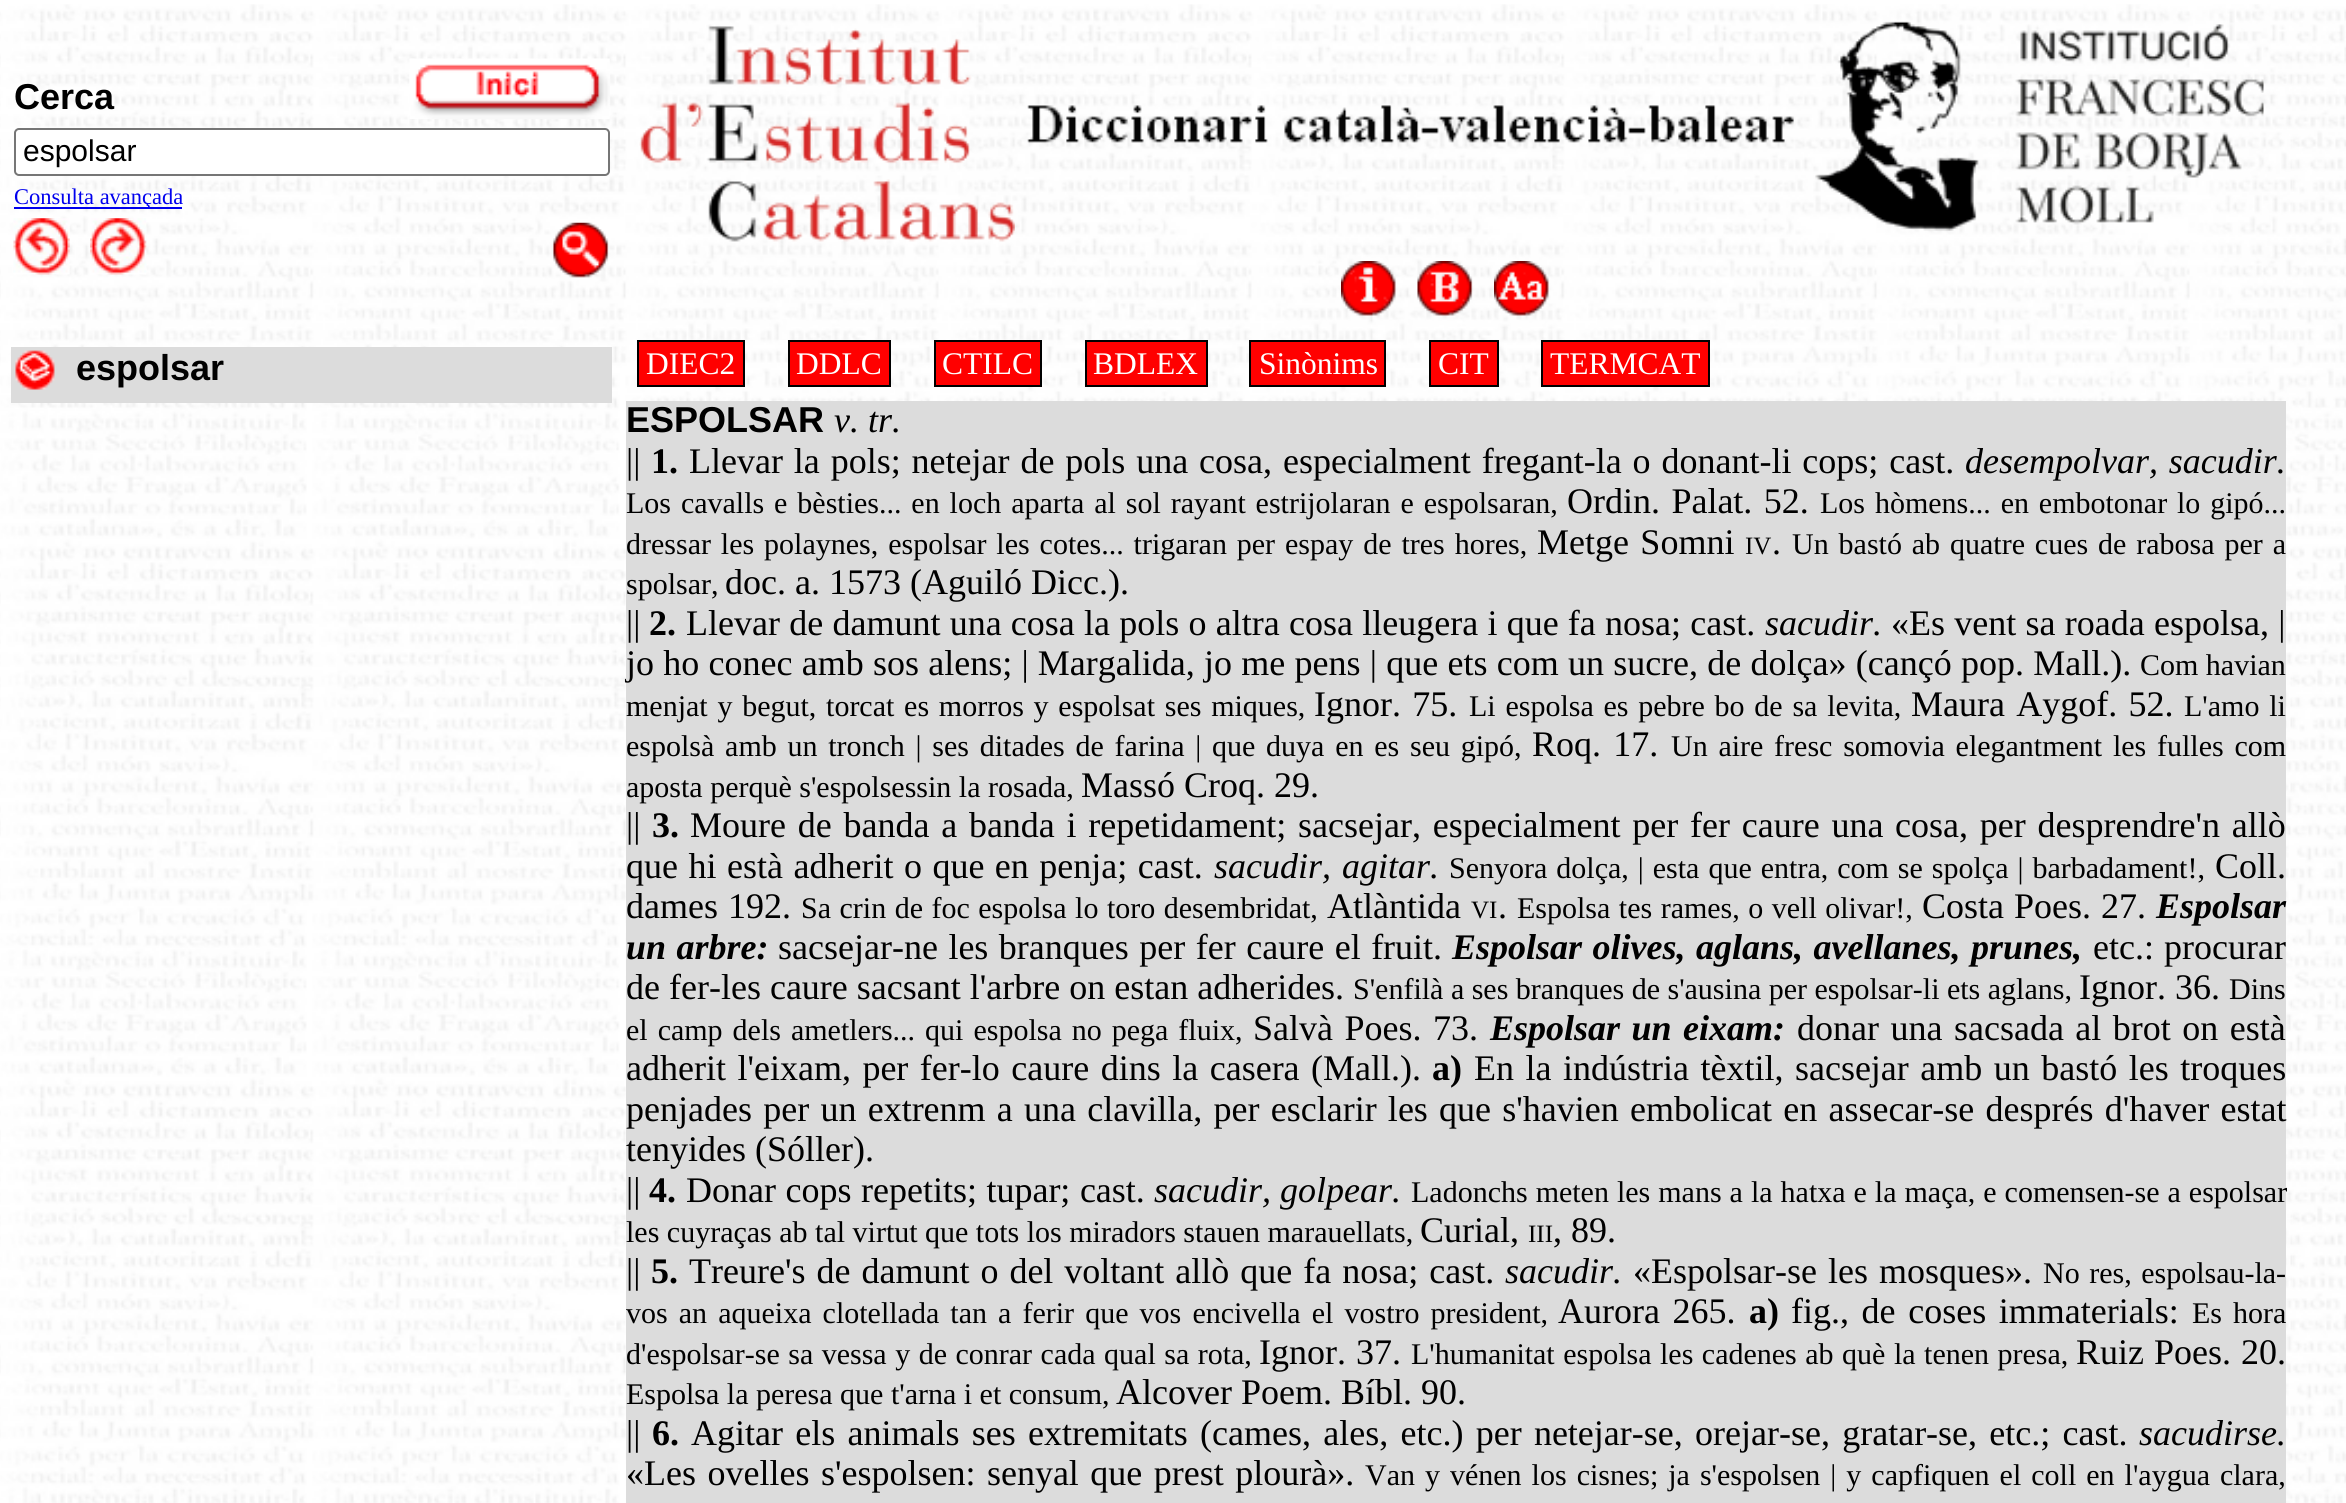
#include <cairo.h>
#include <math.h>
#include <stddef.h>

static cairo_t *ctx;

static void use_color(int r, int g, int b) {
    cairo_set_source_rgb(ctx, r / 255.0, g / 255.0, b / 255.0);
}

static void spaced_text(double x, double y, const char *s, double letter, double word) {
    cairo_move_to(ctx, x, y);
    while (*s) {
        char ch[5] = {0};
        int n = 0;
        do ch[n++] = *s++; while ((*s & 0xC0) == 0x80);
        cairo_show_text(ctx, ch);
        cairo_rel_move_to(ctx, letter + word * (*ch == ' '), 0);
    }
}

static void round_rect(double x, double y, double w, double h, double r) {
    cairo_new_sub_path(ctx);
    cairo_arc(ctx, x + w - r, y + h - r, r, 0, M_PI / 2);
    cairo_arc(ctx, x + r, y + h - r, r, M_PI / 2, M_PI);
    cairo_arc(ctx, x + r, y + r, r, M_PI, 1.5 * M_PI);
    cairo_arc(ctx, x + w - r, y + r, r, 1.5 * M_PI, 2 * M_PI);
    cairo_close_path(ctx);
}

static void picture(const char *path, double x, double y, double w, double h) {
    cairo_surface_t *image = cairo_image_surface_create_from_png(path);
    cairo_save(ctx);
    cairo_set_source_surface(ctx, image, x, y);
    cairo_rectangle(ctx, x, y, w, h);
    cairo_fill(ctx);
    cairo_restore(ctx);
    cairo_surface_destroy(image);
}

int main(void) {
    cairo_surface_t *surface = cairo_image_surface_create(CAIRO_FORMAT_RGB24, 2346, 1503);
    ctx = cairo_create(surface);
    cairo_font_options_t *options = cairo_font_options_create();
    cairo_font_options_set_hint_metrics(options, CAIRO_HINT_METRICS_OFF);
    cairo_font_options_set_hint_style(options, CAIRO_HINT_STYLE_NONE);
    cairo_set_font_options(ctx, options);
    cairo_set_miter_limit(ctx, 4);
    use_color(255, 255, 255);
    cairo_paint(ctx);
    picture("img1.png", 2293, 4, 53, 1499);
    picture("img2.png", 0, 4, 2293, 1499);
    cairo_select_font_face(ctx, "Liberation Sans", CAIRO_FONT_SLANT_NORMAL, CAIRO_FONT_WEIGHT_BOLD);
    cairo_set_font_size(ctx, 36);
    use_color(0, 0, 0);
    cairo_move_to(ctx, 14, 109);
    cairo_show_text(ctx, "Cerca");
    picture("img3.png", 409, 58, 201, 61);
    use_color(255, 255, 255);
    round_rect(15, 129, 594, 46, 4);
    cairo_fill_preserve(ctx);
    use_color(118, 118, 118);
    cairo_stroke(ctx);
    cairo_select_font_face(ctx, "Liberation Sans", CAIRO_FONT_SLANT_NORMAL, CAIRO_FONT_WEIGHT_NORMAL);
    cairo_set_font_size(ctx, 30);
    use_color(0, 0, 0);
    cairo_move_to(ctx, 23, 161);
    cairo_show_text(ctx, "espolsar");
    use_color(0, 0, 238);
    cairo_rectangle(ctx, 14, 207, 168, 2);
    cairo_fill(ctx);
    cairo_select_font_face(ctx, "Liberation Serif", CAIRO_FONT_SLANT_NORMAL, CAIRO_FONT_WEIGHT_NORMAL);
    cairo_set_font_size(ctx, 22.5);
    cairo_move_to(ctx, 14, 204);
    cairo_show_text(ctx, "Consulta avançada");
    picture("img4.png", 13, 218, 57, 57);
    picture("img5.png", 90, 218, 57, 57);
    picture("img6.png", 553, 222, 56, 56);
    picture("img7.png", 639, 26, 376, 216);
    picture("img8.png", 1027, 105, 767, 38);
    picture("img9.png", 1815, 21, 449, 210);
    picture("img10.png", 1341, 261, 55, 55);
    picture("img11.png", 1417, 261, 56, 55);
    picture("img12.png", 1494, 261, 55, 55);
    use_color(220, 220, 220);
    cairo_rectangle(ctx, 11, 347, 601, 56);
    cairo_fill(ctx);
    picture("img13.png", 15, 350, 40, 40);
    cairo_select_font_face(ctx, "Liberation Sans", CAIRO_FONT_SLANT_NORMAL, CAIRO_FONT_WEIGHT_BOLD);
    cairo_set_font_size(ctx, 36);
    use_color(0, 0, 0);
    cairo_move_to(ctx, 76, 380);
    cairo_show_text(ctx, "espolsar");
    use_color(255, 0, 0);
    cairo_rectangle(ctx, 638, 341, 106, 45);
    cairo_fill_preserve(ctx);
    use_color(0, 0, 0);
    cairo_stroke(ctx);
    cairo_select_font_face(ctx, "Liberation Serif", CAIRO_FONT_SLANT_NORMAL, CAIRO_FONT_WEIGHT_NORMAL);
    cairo_set_font_size(ctx, 31.5);
    use_color(255, 255, 255);
    cairo_move_to(ctx, 646, 374);
    cairo_show_text(ctx, "DIEC2");
    use_color(255, 0, 0);
    cairo_rectangle(ctx, 789, 341, 101, 45);
    cairo_fill_preserve(ctx);
    use_color(0, 0, 0);
    cairo_stroke(ctx);
    use_color(255, 255, 255);
    cairo_move_to(ctx, 796, 374);
    cairo_show_text(ctx, "DDLC");
    use_color(255, 0, 0);
    cairo_rectangle(ctx, 935, 341, 106, 45);
    cairo_fill_preserve(ctx);
    use_color(0, 0, 0);
    cairo_stroke(ctx);
    use_color(255, 255, 255);
    cairo_move_to(ctx, 942, 374);
    cairo_show_text(ctx, "CTILC");
    use_color(255, 0, 0);
    cairo_rectangle(ctx, 1086, 341, 121, 45);
    cairo_fill_preserve(ctx);
    use_color(0, 0, 0);
    cairo_stroke(ctx);
    use_color(255, 255, 255);
    cairo_move_to(ctx, 1093, 374);
    cairo_show_text(ctx, "BDLEX");
    use_color(255, 0, 0);
    cairo_rectangle(ctx, 1250, 341, 135, 45);
    cairo_fill_preserve(ctx);
    use_color(0, 0, 0);
    cairo_stroke(ctx);
    use_color(255, 255, 255);
    cairo_move_to(ctx, 1259, 374);
    cairo_show_text(ctx, "Sinònims");
    use_color(255, 0, 0);
    cairo_rectangle(ctx, 1430, 341, 68, 45);
    cairo_fill_preserve(ctx);
    use_color(0, 0, 0);
    cairo_stroke(ctx);
    use_color(255, 255, 255);
    cairo_move_to(ctx, 1438, 374);
    cairo_show_text(ctx, "CIT");
    use_color(255, 0, 0);
    cairo_rectangle(ctx, 1542, 341, 167, 45);
    cairo_fill_preserve(ctx);
    use_color(0, 0, 0);
    cairo_stroke(ctx);
    use_color(255, 255, 255);
    cairo_move_to(ctx, 1550, 374);
    cairo_show_text(ctx, "TERMCAT");
    use_color(220, 220, 220);
    cairo_rectangle(ctx, 626, 401, 1660, 1102);
    cairo_fill(ctx);
    cairo_select_font_face(ctx, "Liberation Sans", CAIRO_FONT_SLANT_NORMAL, CAIRO_FONT_WEIGHT_BOLD);
    cairo_set_font_size(ctx, 36);
    use_color(0, 0, 0);
    cairo_move_to(ctx, 626, 432);
    cairo_show_text(ctx, "ESPOLSAR");
    cairo_select_font_face(ctx, "Liberation Serif", CAIRO_FONT_SLANT_ITALIC, CAIRO_FONT_WEIGHT_NORMAL);
    cairo_move_to(ctx, 834, 432);
    cairo_show_text(ctx, "v. tr.");
    cairo_select_font_face(ctx, "Liberation Serif", CAIRO_FONT_SLANT_NORMAL, CAIRO_FONT_WEIGHT_NORMAL);
    cairo_move_to(ctx, 626, 473);
    cairo_show_text(ctx, "||");
    cairo_select_font_face(ctx, "Liberation Serif", CAIRO_FONT_SLANT_NORMAL, CAIRO_FONT_WEIGHT_BOLD);
    cairo_move_to(ctx, 651, 473);
    cairo_show_text(ctx, "1.");
    cairo_select_font_face(ctx, "Liberation Serif", CAIRO_FONT_SLANT_NORMAL, CAIRO_FONT_WEIGHT_NORMAL);
    spaced_text(689, 473, "Llevar la pols; netejar de pols una cosa, especialment fregant-la o donant-li cops; cast.", 0, 1.9);
    cairo_select_font_face(ctx, "Liberation Serif", CAIRO_FONT_SLANT_ITALIC, CAIRO_FONT_WEIGHT_NORMAL);
    spaced_text(1965, 473, "desempolvar, sacudir.", 0, 1.9);
    cairo_select_font_face(ctx, "Liberation Serif", CAIRO_FONT_SLANT_NORMAL, CAIRO_FONT_WEIGHT_NORMAL);
    cairo_set_font_size(ctx, 30);
    spaced_text(626, 513, "Los cavalls e bèsties... en loch aparta al sol rayant estrijolaran e espolsaran,", 0, 2.4);
    cairo_set_font_size(ctx, 36);
    spaced_text(1567, 513, "Ordin. Palat. 52.", 0, 2.4);
    cairo_set_font_size(ctx, 30);
    spaced_text(1820, 513, "Los hòmens... en embotonar lo gipó...", 0, 2.4);
    spaced_text(626, 554, "dressar les polaynes, espolsar les cotes... trigaran per espay de tres hores,", 0, 2.4);
    cairo_set_font_size(ctx, 36);
    spaced_text(1537, 554, "Metge Somni", 0, 2.4);
    cairo_set_font_size(ctx, 25);
    cairo_move_to(ctx, 1745, 554);
    cairo_show_text(ctx, "IV");
    cairo_set_font_size(ctx, 36);
    cairo_move_to(ctx, 1772, 554);
    cairo_show_text(ctx, ".");
    cairo_set_font_size(ctx, 30);
    spaced_text(1792, 554, "Un bastó ab quatre cues de rabosa per a", 0, 2.4);
    cairo_move_to(ctx, 626, 594);
    cairo_show_text(ctx, "spolsar,");
    cairo_set_font_size(ctx, 36);
    cairo_move_to(ctx, 725, 594);
    cairo_show_text(ctx, "doc. a. 1573 (Aguiló Dicc.).");
    cairo_move_to(ctx, 626, 635);
    cairo_show_text(ctx, "||");
    cairo_select_font_face(ctx, "Liberation Serif", CAIRO_FONT_SLANT_NORMAL, CAIRO_FONT_WEIGHT_BOLD);
    cairo_move_to(ctx, 649, 635);
    cairo_show_text(ctx, "2.");
    cairo_select_font_face(ctx, "Liberation Serif", CAIRO_FONT_SLANT_NORMAL, CAIRO_FONT_WEIGHT_NORMAL);
    spaced_text(686, 635, "Llevar de damunt una cosa la pols o altra cosa lleugera i que fa nosa; cast.", 0, 0.25);
    cairo_select_font_face(ctx, "Liberation Serif", CAIRO_FONT_SLANT_ITALIC, CAIRO_FONT_WEIGHT_NORMAL);
    cairo_move_to(ctx, 1765, 635);
    cairo_show_text(ctx, "sacudir.");
    cairo_select_font_face(ctx, "Liberation Serif", CAIRO_FONT_SLANT_NORMAL, CAIRO_FONT_WEIGHT_NORMAL);
    spaced_text(1891, 635, "«Es vent sa roada espolsa, |", 0, 0.25);
    spaced_text(626, 675, "jo ho conec amb sos alens; | Margalida, jo me pens | que ets com un sucre, de dolça» (cançó pop. Mall.).", 0, 0.25);
    cairo_set_font_size(ctx, 30);
    cairo_move_to(ctx, 2140, 675);
    cairo_show_text(ctx, "Com havian");
    spaced_text(626, 716, "menjat y begut, torcat es morros y espolsat ses miques,", 0, 2.25);
    cairo_set_font_size(ctx, 36);
    spaced_text(1314, 716, "Ignor. 75.", 0, 2.25);
    cairo_set_font_size(ctx, 30);
    spaced_text(1469, 716, "Li espolsa es pebre bo de sa levita,", 0, 2.25);
    cairo_set_font_size(ctx, 36);
    spaced_text(1911, 716, "Maura Aygof. 52.", 0, 2.25);
    cairo_set_font_size(ctx, 30);
    spaced_text(2184, 716, "L'amo li", 0, 2.25);
    spaced_text(626, 756, "espolsà amb un tronch | ses ditades de farina | que duya en es seu gipó,", 0, 3.25);
    cairo_set_font_size(ctx, 36);
    spaced_text(1532, 756, "Roq. 17.", 0, 3.25);
    cairo_set_font_size(ctx, 30);
    spaced_text(1671, 756, "Un aire fresc somovia elegantment les fulles com", 0, 3.25);
    cairo_move_to(ctx, 626, 797);
    cairo_show_text(ctx, "aposta perquè s'espolsessin la rosada,");
    cairo_set_font_size(ctx, 36);
    cairo_move_to(ctx, 1081, 797);
    cairo_show_text(ctx, "Massó Croq. 29.");
    cairo_move_to(ctx, 626, 837);
    cairo_show_text(ctx, "||");
    cairo_select_font_face(ctx, "Liberation Serif", CAIRO_FONT_SLANT_NORMAL, CAIRO_FONT_WEIGHT_BOLD);
    cairo_move_to(ctx, 652, 837);
    cairo_show_text(ctx, "3.");
    cairo_select_font_face(ctx, "Liberation Serif", CAIRO_FONT_SLANT_NORMAL, CAIRO_FONT_WEIGHT_NORMAL);
    spaced_text(690, 837, "Moure de banda a banda i repetidament; sacsejar, especialment per fer caure una cosa, per desprendre'n allò", 0, 2.75);
    spaced_text(626, 878, "que hi està adherit o que en penja; cast.", 0, 1.5);
    cairo_select_font_face(ctx, "Liberation Serif", CAIRO_FONT_SLANT_ITALIC, CAIRO_FONT_WEIGHT_NORMAL);
    spaced_text(1214, 878, "sacudir, agitar.", 0, 2);
    cairo_select_font_face(ctx, "Liberation Serif", CAIRO_FONT_SLANT_NORMAL, CAIRO_FONT_WEIGHT_NORMAL);
    cairo_set_font_size(ctx, 30);
    spaced_text(1449, 878, "Senyora dolça, | esta que entra, com se spolça | barbadament!,", 0, 1.5);
    cairo_set_font_size(ctx, 36);
    cairo_move_to(ctx, 2215, 878);
    cairo_show_text(ctx, "Coll.");
    spaced_text(626, 918, "dames 192.", 0, 1);
    cairo_set_font_size(ctx, 30);
    spaced_text(801, 918, "Sa crin de foc espolsa lo toro desembridat,", 0, 1);
    cairo_set_font_size(ctx, 36);
    cairo_move_to(ctx, 1327, 918);
    cairo_show_text(ctx, "Atlàntida");
    cairo_set_font_size(ctx, 25);
    cairo_move_to(ctx, 1471, 918);
    cairo_show_text(ctx, "VI");
    cairo_set_font_size(ctx, 36);
    cairo_move_to(ctx, 1498, 918);
    cairo_show_text(ctx, ".");
    cairo_set_font_size(ctx, 30);
    spaced_text(1517, 918, "Espolsa tes rames, o vell olivar!,", 0, 1);
    cairo_set_font_size(ctx, 36);
    spaced_text(1922, 918, "Costa Poes. 27.", 0, 1);
    cairo_select_font_face(ctx, "Liberation Serif", CAIRO_FONT_SLANT_ITALIC, CAIRO_FONT_WEIGHT_BOLD);
    cairo_move_to(ctx, 2156, 918);
    cairo_show_text(ctx, "Espolsar");
    spaced_text(626, 959, "un arbre:", 0, 1.5);
    cairo_select_font_face(ctx, "Liberation Serif", CAIRO_FONT_SLANT_NORMAL, CAIRO_FONT_WEIGHT_NORMAL);
    spaced_text(778, 959, "sacsejar-ne les branques per fer caure el fruit.", 0, 1.5);
    cairo_select_font_face(ctx, "Liberation Serif", CAIRO_FONT_SLANT_ITALIC, CAIRO_FONT_WEIGHT_BOLD);
    spaced_text(1452, 959, "Espolsar olives, aglans, avellanes, prunes,", 0, 1.5);
    cairo_select_font_face(ctx, "Liberation Serif", CAIRO_FONT_SLANT_NORMAL, CAIRO_FONT_WEIGHT_NORMAL);
    cairo_move_to(ctx, 2093, 959);
    cairo_show_text(ctx, "etc.:");
    cairo_move_to(ctx, 2164, 959);
    cairo_show_text(ctx, "procurar");
    cairo_move_to(ctx, 626, 999);
    cairo_show_text(ctx, "de fer-les caure sacsant l'arbre on estan adherides.");
    cairo_set_font_size(ctx, 30);
    cairo_move_to(ctx, 1353, 999);
    cairo_show_text(ctx, "S'enfilà a ses branques de s'ausina per espolsar-li ets aglans,");
    cairo_set_font_size(ctx, 36);
    cairo_move_to(ctx, 2079, 999);
    cairo_show_text(ctx, "Ignor. 36.");
    cairo_set_font_size(ctx, 30);
    cairo_move_to(ctx, 2229, 999);
    cairo_show_text(ctx, "Dins");
    spaced_text(626, 1040, "el camp dels ametlers... qui espolsa no pega fluix,", 0, 2.5);
    cairo_set_font_size(ctx, 36);
    spaced_text(1253, 1040, "Salvà Poes. 73.", 0, 2.5);
    cairo_select_font_face(ctx, "Liberation Serif", CAIRO_FONT_SLANT_ITALIC, CAIRO_FONT_WEIGHT_BOLD);
    spaced_text(1490, 1040, "Espolsar un eixam:", 0, 2.5);
    cairo_select_font_face(ctx, "Liberation Serif", CAIRO_FONT_SLANT_NORMAL, CAIRO_FONT_WEIGHT_NORMAL);
    spaced_text(1797, 1040, "donar una sacsada al brot on està", 0, 2.5);
    spaced_text(626, 1080, "adherit l'eixam, per fer-lo caure dins la casera (Mall.).", 0, 2.5);
    cairo_select_font_face(ctx, "Liberation Serif", CAIRO_FONT_SLANT_NORMAL, CAIRO_FONT_WEIGHT_BOLD);
    cairo_move_to(ctx, 1432, 1080);
    cairo_show_text(ctx, "a)");
    cairo_select_font_face(ctx, "Liberation Serif", CAIRO_FONT_SLANT_NORMAL, CAIRO_FONT_WEIGHT_NORMAL);
    spaced_text(1474, 1080, "En la indústria tèxtil, sacsejar amb un bastó les troques", 0, 2.5);
    spaced_text(626, 1121, "penjades per un extrenm a una clavilla, per esclarir les que s'havien embolicat en assecar-se després d'haver estat", 0, 2.25);
    cairo_move_to(ctx, 626, 1161);
    cairo_show_text(ctx, "tenyides (Sóller).");
    cairo_move_to(ctx, 626, 1202);
    cairo_show_text(ctx, "||");
    cairo_select_font_face(ctx, "Liberation Serif", CAIRO_FONT_SLANT_NORMAL, CAIRO_FONT_WEIGHT_BOLD);
    cairo_move_to(ctx, 649, 1202);
    cairo_show_text(ctx, "4.");
    cairo_select_font_face(ctx, "Liberation Serif", CAIRO_FONT_SLANT_NORMAL, CAIRO_FONT_WEIGHT_NORMAL);
    spaced_text(686, 1202, "Donar cops repetits; tupar; cast.", 0, 0.5);
    cairo_select_font_face(ctx, "Liberation Serif", CAIRO_FONT_SLANT_ITALIC, CAIRO_FONT_WEIGHT_NORMAL);
    cairo_move_to(ctx, 1154, 1202);
    cairo_show_text(ctx, "sacudir, golpear.");
    cairo_select_font_face(ctx, "Liberation Serif", CAIRO_FONT_SLANT_NORMAL, CAIRO_FONT_WEIGHT_NORMAL);
    cairo_set_font_size(ctx, 30);
    spaced_text(1411, 1202, "Ladonchs meten les mans a la hatxa e la maça, e comensen-se a espolsar", 0, 0.5);
    cairo_move_to(ctx, 626, 1242);
    cairo_show_text(ctx, "les cuyraças ab tal virtut que tots los miradors stauen marauellats,");
    cairo_set_font_size(ctx, 36);
    cairo_move_to(ctx, 1420, 1242);
    cairo_show_text(ctx, "Curial,");
    cairo_set_font_size(ctx, 25);
    cairo_move_to(ctx, 1528, 1242);
    cairo_show_text(ctx, "III");
    cairo_set_font_size(ctx, 36);
    cairo_move_to(ctx, 1571, 1242);
    cairo_show_text(ctx, "89.");
    cairo_move_to(ctx, 1553, 1242);
    cairo_show_text(ctx, ",");
    cairo_move_to(ctx, 626, 1283);
    cairo_show_text(ctx, "||");
    cairo_select_font_face(ctx, "Liberation Serif", CAIRO_FONT_SLANT_NORMAL, CAIRO_FONT_WEIGHT_BOLD);
    cairo_move_to(ctx, 651, 1283);
    cairo_show_text(ctx, "5.");
    cairo_select_font_face(ctx, "Liberation Serif", CAIRO_FONT_SLANT_NORMAL, CAIRO_FONT_WEIGHT_NORMAL);
    spaced_text(689, 1283, "Treure's de damunt o del voltant allò que fa nosa; cast.", 0, 2);
    cairo_select_font_face(ctx, "Liberation Serif", CAIRO_FONT_SLANT_ITALIC, CAIRO_FONT_WEIGHT_NORMAL);
    cairo_move_to(ctx, 1505, 1283);
    cairo_show_text(ctx, "sacudir.");
    cairo_select_font_face(ctx, "Liberation Serif", CAIRO_FONT_SLANT_NORMAL, CAIRO_FONT_WEIGHT_NORMAL);
    spaced_text(1633, 1283, "«Espolsar-se les mosques».", 0, 2);
    cairo_set_font_size(ctx, 30);
    spaced_text(2043, 1283, "No res, espolsau-la-", 0, 2);
    spaced_text(626, 1323, "vos an aqueixa clotellada tan a ferir que vos encivella el vostro president,", 0, 3.6);
    cairo_set_font_size(ctx, 36);
    spaced_text(1558, 1323, "Aurora 265.", 0, 3.6);
    cairo_select_font_face(ctx, "Liberation Serif", CAIRO_FONT_SLANT_NORMAL, CAIRO_FONT_WEIGHT_BOLD);
    cairo_move_to(ctx, 1749, 1323);
    cairo_show_text(ctx, "a)");
    cairo_select_font_face(ctx, "Liberation Serif", CAIRO_FONT_SLANT_NORMAL, CAIRO_FONT_WEIGHT_NORMAL);
    spaced_text(1791, 1323, "fig., de coses immaterials:", 0, 3.6);
    cairo_set_font_size(ctx, 30);
    spaced_text(2192, 1323, "Es hora", 0, 3.6);
    spaced_text(626, 1364, "d'espolsar-se sa vessa y de conrar cada qual sa rota,", 0, 1);
    cairo_set_font_size(ctx, 36);
    spaced_text(1259, 1364, "Ignor. 37.", 0, 1);
    cairo_set_font_size(ctx, 30);
    spaced_text(1411, 1364, "L'humanitat espolsa les cadenes ab què la tenen presa,", 0, 1);
    cairo_set_font_size(ctx, 36);
    spaced_text(2076, 1364, "Ruiz Poes. 20.", 0, 1);
    cairo_set_font_size(ctx, 30);
    cairo_move_to(ctx, 626, 1404);
    cairo_show_text(ctx, "Espolsa la peresa que t'arna i et consum,");
    cairo_set_font_size(ctx, 36);
    cairo_move_to(ctx, 1116, 1404);
    cairo_show_text(ctx, "Alcover Poem. Bíbl. 90.");
    cairo_move_to(ctx, 626, 1445);
    cairo_show_text(ctx, "||");
    cairo_select_font_face(ctx, "Liberation Serif", CAIRO_FONT_SLANT_NORMAL, CAIRO_FONT_WEIGHT_BOLD);
    cairo_move_to(ctx, 652, 1445);
    cairo_show_text(ctx, "6.");
    cairo_select_font_face(ctx, "Liberation Serif", CAIRO_FONT_SLANT_NORMAL, CAIRO_FONT_WEIGHT_NORMAL);
    spaced_text(691, 1445, "Agitar els animals ses extremitats (cames, ales, etc.) per netejar-se, orejar-se, gratar-se, etc.; cast.", 0, 3.25);
    cairo_select_font_face(ctx, "Liberation Serif", CAIRO_FONT_SLANT_ITALIC, CAIRO_FONT_WEIGHT_NORMAL);
    cairo_move_to(ctx, 2139, 1445);
    cairo_show_text(ctx, "sacudirse.");
    cairo_select_font_face(ctx, "Liberation Serif", CAIRO_FONT_SLANT_NORMAL, CAIRO_FONT_WEIGHT_NORMAL);
    spaced_text(626, 1485, "«Les ovelles s'espolsen: senyal que prest plourà».", 0, 2.5);
    cairo_set_font_size(ctx, 30);
    spaced_text(1365, 1485, "Van y vénen los cisnes; ja s'espolsen | y capfiquen el coll en l'aygua clara,", 0, 2.5);
    cairo_surface_write_to_png(surface, "result.png");
    cairo_font_options_destroy(options);
    cairo_destroy(ctx);
    cairo_surface_destroy(surface);
    return 0;
}
